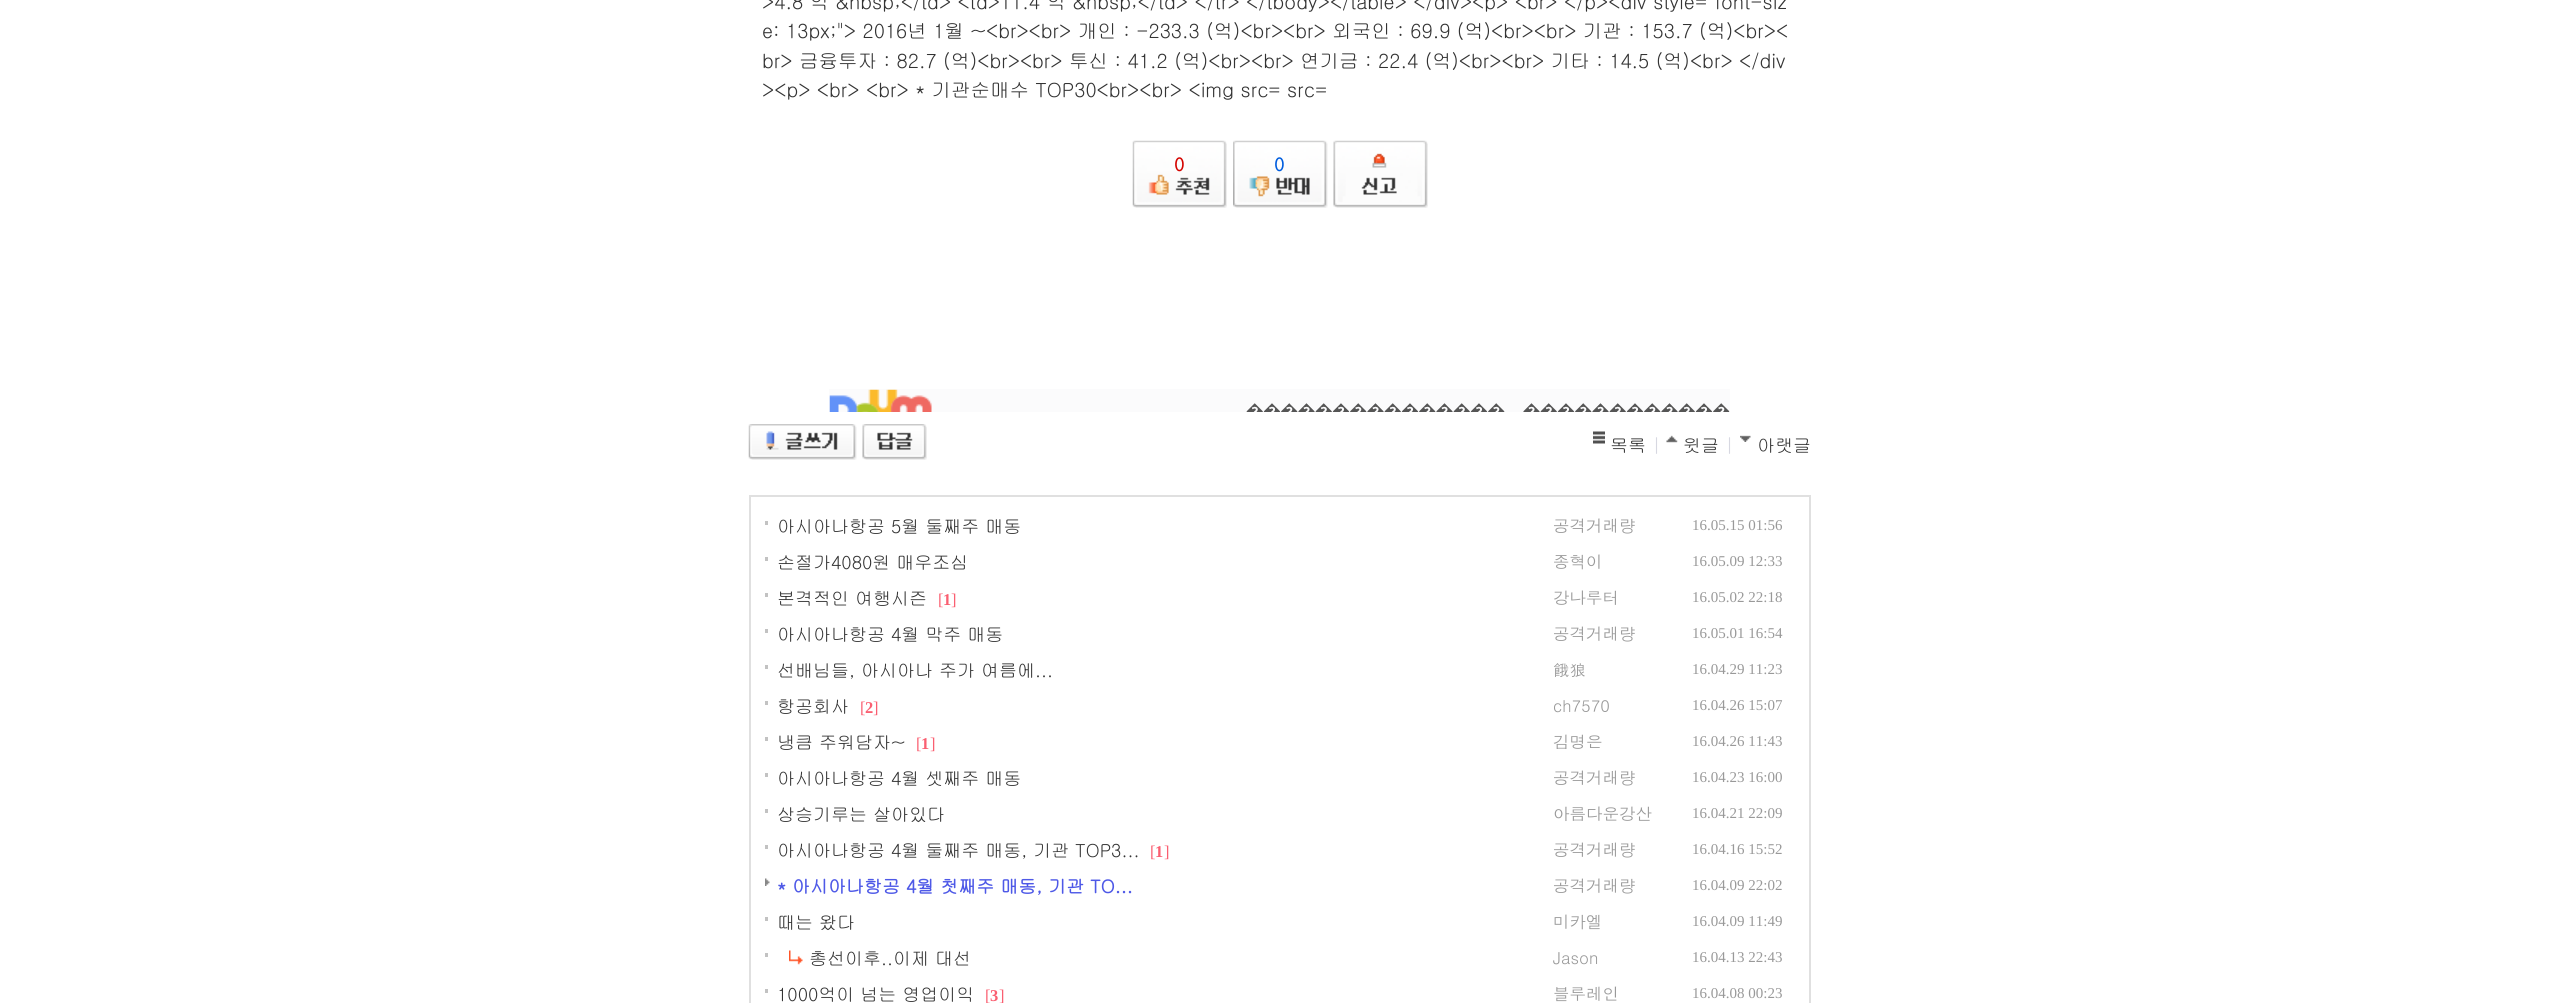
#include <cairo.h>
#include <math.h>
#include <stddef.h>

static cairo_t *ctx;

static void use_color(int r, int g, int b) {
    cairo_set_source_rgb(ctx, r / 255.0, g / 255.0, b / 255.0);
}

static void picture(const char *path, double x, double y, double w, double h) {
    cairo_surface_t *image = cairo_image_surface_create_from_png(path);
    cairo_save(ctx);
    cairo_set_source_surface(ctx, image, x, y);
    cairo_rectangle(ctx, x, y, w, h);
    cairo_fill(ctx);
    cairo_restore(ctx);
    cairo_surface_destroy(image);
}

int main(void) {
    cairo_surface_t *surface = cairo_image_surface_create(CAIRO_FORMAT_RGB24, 2559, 1003);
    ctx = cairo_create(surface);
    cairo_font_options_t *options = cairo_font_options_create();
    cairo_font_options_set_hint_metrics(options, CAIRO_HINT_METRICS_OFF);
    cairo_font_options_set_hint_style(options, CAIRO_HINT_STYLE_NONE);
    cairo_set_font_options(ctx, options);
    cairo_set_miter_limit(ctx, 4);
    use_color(255, 255, 255);
    cairo_paint(ctx);
    cairo_select_font_face(ctx, "Gulim", CAIRO_FONT_SLANT_NORMAL, CAIRO_FONT_WEIGHT_NORMAL);
    cairo_set_font_size(ctx, 19.5);
    use_color(51, 51, 51);
    cairo_move_to(ctx, 762, 9);
    cairo_show_text(ctx, ">4.8 억 &nbsp;</td> <td>11.4 억 &nbsp;</td> </tr> </tbody></table> </div><p> <br> </p><div style=\"font-siz");
    cairo_move_to(ctx, 762, 38);
    cairo_show_text(ctx, "e: 13px;\"> 2016년 1월 ~<br><br> 개인 : -233.3 (억)<br><br> 외국인 : 69.9 (억)<br><br> 기관 : 153.7 (억)<br><");
    cairo_move_to(ctx, 762, 68);
    cairo_show_text(ctx, "br> 금융투자 : 82.7 (억)<br><br> 투신 : 41.2 (억)<br><br> 연기금 : 22.4 (억)<br><br> 기타 : 14.5 (억)<br> </div");
    cairo_move_to(ctx, 762, 97);
    cairo_show_text(ctx, "><p> <br> <br> * 기관순매수 TOP30<br><br> <img src= src=");
    picture("img1.png", 1132, 140, 95, 68);
    cairo_select_font_face(ctx, "Gulim", CAIRO_FONT_SLANT_NORMAL, CAIRO_FONT_WEIGHT_BOLD);
    cairo_set_font_size(ctx, 18);
    use_color(212, 4, 0);
    cairo_move_to(ctx, 1174, 171);
    cairo_show_text(ctx, "0");
    picture("img2.png", 1233, 140, 95, 68);
    use_color(0, 93, 222);
    cairo_move_to(ctx, 1274, 171);
    cairo_show_text(ctx, "0");
    picture("img3.png", 1333, 140, 95, 68);
    picture("img4.png", 829, 389, 901, 23);
    picture("img5.png", 748, 424, 109, 36);
    picture("img6.png", 862, 424, 65, 36);
    picture("img7.png", 1593, 431, 12, 13);
    cairo_select_font_face(ctx, "Gulim", CAIRO_FONT_SLANT_NORMAL, CAIRO_FONT_WEIGHT_NORMAL);
    use_color(51, 51, 51);
    cairo_move_to(ctx, 1610, 452);
    cairo_show_text(ctx, "목록");
    use_color(215, 216, 225);
    cairo_move_to(ctx, 1652, 452);
    cairo_show_text(ctx, "|");
    picture("img8.png", 1666, 435, 12, 8);
    use_color(51, 51, 51);
    cairo_move_to(ctx, 1683, 452);
    cairo_show_text(ctx, "윗글");
    use_color(215, 216, 225);
    cairo_move_to(ctx, 1725, 452);
    cairo_show_text(ctx, "|");
    picture("img9.png", 1740, 435, 11, 7);
    use_color(51, 51, 51);
    cairo_move_to(ctx, 1757, 452);
    cairo_show_text(ctx, "아랫글");
    cairo_rectangle(ctx, 750, 496, 1060, 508);
    use_color(224, 224, 224);
    cairo_stroke(ctx);
    use_color(194, 194, 194);
    cairo_rectangle(ctx, 765, 521, 3, 4);
    cairo_fill(ctx);
    use_color(51, 51, 51);
    cairo_move_to(ctx, 777, 533);
    cairo_show_text(ctx, "아시아나항공 5월 둘째주 매동");
    cairo_select_font_face(ctx, "Dotum", CAIRO_FONT_SLANT_NORMAL, CAIRO_FONT_WEIGHT_NORMAL);
    cairo_set_font_size(ctx, 16.5);
    use_color(153, 153, 153);
    cairo_move_to(ctx, 1553, 532);
    cairo_show_text(ctx, "공격거래량");
    cairo_select_font_face(ctx, "Liberation Serif", CAIRO_FONT_SLANT_NORMAL, CAIRO_FONT_WEIGHT_NORMAL);
    cairo_set_font_size(ctx, 15);
    cairo_move_to(ctx, 1692, 530);
    cairo_show_text(ctx, "16.05.15 01:56");
    use_color(194, 194, 194);
    cairo_rectangle(ctx, 765, 557, 3, 4);
    cairo_fill(ctx);
    cairo_select_font_face(ctx, "Gulim", CAIRO_FONT_SLANT_NORMAL, CAIRO_FONT_WEIGHT_NORMAL);
    cairo_set_font_size(ctx, 18);
    use_color(51, 51, 51);
    cairo_move_to(ctx, 777, 569);
    cairo_show_text(ctx, "손절가4080원 매우조심");
    cairo_select_font_face(ctx, "Dotum", CAIRO_FONT_SLANT_NORMAL, CAIRO_FONT_WEIGHT_NORMAL);
    cairo_set_font_size(ctx, 16.5);
    use_color(153, 153, 153);
    cairo_move_to(ctx, 1553, 568);
    cairo_show_text(ctx, "종혁이");
    cairo_select_font_face(ctx, "Liberation Serif", CAIRO_FONT_SLANT_NORMAL, CAIRO_FONT_WEIGHT_NORMAL);
    cairo_set_font_size(ctx, 15);
    cairo_move_to(ctx, 1692, 566);
    cairo_show_text(ctx, "16.05.09 12:33");
    use_color(194, 194, 194);
    cairo_rectangle(ctx, 765, 593, 3, 4);
    cairo_fill(ctx);
    cairo_select_font_face(ctx, "Gulim", CAIRO_FONT_SLANT_NORMAL, CAIRO_FONT_WEIGHT_NORMAL);
    cairo_set_font_size(ctx, 18);
    use_color(51, 51, 51);
    cairo_move_to(ctx, 777, 605);
    cairo_show_text(ctx, "본격적인 여행시즌");
    cairo_select_font_face(ctx, "Liberation Serif", CAIRO_FONT_SLANT_NORMAL, CAIRO_FONT_WEIGHT_NORMAL);
    cairo_set_font_size(ctx, 16.5);
    use_color(250, 95, 113);
    cairo_move_to(ctx, 938, 605);
    cairo_show_text(ctx, "[");
    cairo_select_font_face(ctx, "Liberation Serif", CAIRO_FONT_SLANT_NORMAL, CAIRO_FONT_WEIGHT_BOLD);
    cairo_move_to(ctx, 943, 605);
    cairo_show_text(ctx, "1");
    cairo_select_font_face(ctx, "Liberation Serif", CAIRO_FONT_SLANT_NORMAL, CAIRO_FONT_WEIGHT_NORMAL);
    cairo_move_to(ctx, 951, 605);
    cairo_show_text(ctx, "]");
    cairo_select_font_face(ctx, "Dotum", CAIRO_FONT_SLANT_NORMAL, CAIRO_FONT_WEIGHT_NORMAL);
    use_color(153, 153, 153);
    cairo_move_to(ctx, 1553, 604);
    cairo_show_text(ctx, "강나루터");
    cairo_select_font_face(ctx, "Liberation Serif", CAIRO_FONT_SLANT_NORMAL, CAIRO_FONT_WEIGHT_NORMAL);
    cairo_set_font_size(ctx, 15);
    cairo_move_to(ctx, 1692, 602);
    cairo_show_text(ctx, "16.05.02 22:18");
    use_color(194, 194, 194);
    cairo_rectangle(ctx, 765, 629, 3, 4);
    cairo_fill(ctx);
    cairo_select_font_face(ctx, "Gulim", CAIRO_FONT_SLANT_NORMAL, CAIRO_FONT_WEIGHT_NORMAL);
    cairo_set_font_size(ctx, 18);
    use_color(51, 51, 51);
    cairo_move_to(ctx, 777, 641);
    cairo_show_text(ctx, "아시아나항공 4월 막주 매동");
    cairo_select_font_face(ctx, "Dotum", CAIRO_FONT_SLANT_NORMAL, CAIRO_FONT_WEIGHT_NORMAL);
    cairo_set_font_size(ctx, 16.5);
    use_color(153, 153, 153);
    cairo_move_to(ctx, 1553, 640);
    cairo_show_text(ctx, "공격거래량");
    cairo_select_font_face(ctx, "Liberation Serif", CAIRO_FONT_SLANT_NORMAL, CAIRO_FONT_WEIGHT_NORMAL);
    cairo_set_font_size(ctx, 15);
    cairo_move_to(ctx, 1692, 638);
    cairo_show_text(ctx, "16.05.01 16:54");
    use_color(194, 194, 194);
    cairo_rectangle(ctx, 765, 665, 3, 4);
    cairo_fill(ctx);
    cairo_select_font_face(ctx, "Gulim", CAIRO_FONT_SLANT_NORMAL, CAIRO_FONT_WEIGHT_NORMAL);
    cairo_set_font_size(ctx, 18);
    use_color(51, 51, 51);
    cairo_move_to(ctx, 777, 677);
    cairo_show_text(ctx, "선배님들, 아시아나 주가 여름에...");
    cairo_select_font_face(ctx, "Dotum", CAIRO_FONT_SLANT_NORMAL, CAIRO_FONT_WEIGHT_NORMAL);
    cairo_set_font_size(ctx, 16.5);
    use_color(153, 153, 153);
    cairo_move_to(ctx, 1553, 676);
    cairo_show_text(ctx, "餓狼");
    cairo_select_font_face(ctx, "Liberation Serif", CAIRO_FONT_SLANT_NORMAL, CAIRO_FONT_WEIGHT_NORMAL);
    cairo_set_font_size(ctx, 15);
    cairo_move_to(ctx, 1692, 674);
    cairo_show_text(ctx, "16.04.29 11:23");
    use_color(194, 194, 194);
    cairo_rectangle(ctx, 765, 701, 3, 4);
    cairo_fill(ctx);
    cairo_select_font_face(ctx, "Gulim", CAIRO_FONT_SLANT_NORMAL, CAIRO_FONT_WEIGHT_NORMAL);
    cairo_set_font_size(ctx, 18);
    use_color(51, 51, 51);
    cairo_move_to(ctx, 777, 713);
    cairo_show_text(ctx, "항공회사");
    cairo_select_font_face(ctx, "Liberation Serif", CAIRO_FONT_SLANT_NORMAL, CAIRO_FONT_WEIGHT_NORMAL);
    cairo_set_font_size(ctx, 16.5);
    use_color(250, 95, 113);
    cairo_move_to(ctx, 860, 713);
    cairo_show_text(ctx, "[");
    cairo_select_font_face(ctx, "Liberation Serif", CAIRO_FONT_SLANT_NORMAL, CAIRO_FONT_WEIGHT_BOLD);
    cairo_move_to(ctx, 865, 713);
    cairo_show_text(ctx, "2");
    cairo_select_font_face(ctx, "Liberation Serif", CAIRO_FONT_SLANT_NORMAL, CAIRO_FONT_WEIGHT_NORMAL);
    cairo_move_to(ctx, 873, 713);
    cairo_show_text(ctx, "]");
    cairo_select_font_face(ctx, "Dotum", CAIRO_FONT_SLANT_NORMAL, CAIRO_FONT_WEIGHT_NORMAL);
    use_color(153, 153, 153);
    cairo_move_to(ctx, 1553, 712);
    cairo_show_text(ctx, "ch7570");
    cairo_select_font_face(ctx, "Liberation Serif", CAIRO_FONT_SLANT_NORMAL, CAIRO_FONT_WEIGHT_NORMAL);
    cairo_set_font_size(ctx, 15);
    cairo_move_to(ctx, 1692, 710);
    cairo_show_text(ctx, "16.04.26 15:07");
    use_color(194, 194, 194);
    cairo_rectangle(ctx, 765, 737, 3, 4);
    cairo_fill(ctx);
    cairo_select_font_face(ctx, "Gulim", CAIRO_FONT_SLANT_NORMAL, CAIRO_FONT_WEIGHT_NORMAL);
    cairo_set_font_size(ctx, 18);
    use_color(51, 51, 51);
    cairo_move_to(ctx, 777, 749);
    cairo_show_text(ctx, "냉큼 주워담자~");
    cairo_select_font_face(ctx, "Liberation Serif", CAIRO_FONT_SLANT_NORMAL, CAIRO_FONT_WEIGHT_NORMAL);
    cairo_set_font_size(ctx, 16.5);
    use_color(250, 95, 113);
    cairo_move_to(ctx, 916, 749);
    cairo_show_text(ctx, "[");
    cairo_select_font_face(ctx, "Liberation Serif", CAIRO_FONT_SLANT_NORMAL, CAIRO_FONT_WEIGHT_BOLD);
    cairo_move_to(ctx, 921, 749);
    cairo_show_text(ctx, "1");
    cairo_select_font_face(ctx, "Liberation Serif", CAIRO_FONT_SLANT_NORMAL, CAIRO_FONT_WEIGHT_NORMAL);
    cairo_move_to(ctx, 930, 749);
    cairo_show_text(ctx, "]");
    cairo_select_font_face(ctx, "Dotum", CAIRO_FONT_SLANT_NORMAL, CAIRO_FONT_WEIGHT_NORMAL);
    use_color(153, 153, 153);
    cairo_move_to(ctx, 1553, 748);
    cairo_show_text(ctx, "김명은");
    cairo_select_font_face(ctx, "Liberation Serif", CAIRO_FONT_SLANT_NORMAL, CAIRO_FONT_WEIGHT_NORMAL);
    cairo_set_font_size(ctx, 15);
    cairo_move_to(ctx, 1692, 746);
    cairo_show_text(ctx, "16.04.26 11:43");
    use_color(194, 194, 194);
    cairo_rectangle(ctx, 765, 773, 3, 4);
    cairo_fill(ctx);
    cairo_select_font_face(ctx, "Gulim", CAIRO_FONT_SLANT_NORMAL, CAIRO_FONT_WEIGHT_NORMAL);
    cairo_set_font_size(ctx, 18);
    use_color(51, 51, 51);
    cairo_move_to(ctx, 777, 785);
    cairo_show_text(ctx, "아시아나항공 4월 셋째주 매동");
    cairo_select_font_face(ctx, "Dotum", CAIRO_FONT_SLANT_NORMAL, CAIRO_FONT_WEIGHT_NORMAL);
    cairo_set_font_size(ctx, 16.5);
    use_color(153, 153, 153);
    cairo_move_to(ctx, 1553, 784);
    cairo_show_text(ctx, "공격거래량");
    cairo_select_font_face(ctx, "Liberation Serif", CAIRO_FONT_SLANT_NORMAL, CAIRO_FONT_WEIGHT_NORMAL);
    cairo_set_font_size(ctx, 15);
    cairo_move_to(ctx, 1692, 782);
    cairo_show_text(ctx, "16.04.23 16:00");
    use_color(194, 194, 194);
    cairo_rectangle(ctx, 765, 809, 3, 4);
    cairo_fill(ctx);
    cairo_select_font_face(ctx, "Gulim", CAIRO_FONT_SLANT_NORMAL, CAIRO_FONT_WEIGHT_NORMAL);
    cairo_set_font_size(ctx, 18);
    use_color(51, 51, 51);
    cairo_move_to(ctx, 777, 821);
    cairo_show_text(ctx, "상승기루는 살아있다");
    cairo_select_font_face(ctx, "Dotum", CAIRO_FONT_SLANT_NORMAL, CAIRO_FONT_WEIGHT_NORMAL);
    cairo_set_font_size(ctx, 16.5);
    use_color(153, 153, 153);
    cairo_move_to(ctx, 1553, 820);
    cairo_show_text(ctx, "아름다운강산");
    cairo_select_font_face(ctx, "Liberation Serif", CAIRO_FONT_SLANT_NORMAL, CAIRO_FONT_WEIGHT_NORMAL);
    cairo_set_font_size(ctx, 15);
    cairo_move_to(ctx, 1692, 818);
    cairo_show_text(ctx, "16.04.21 22:09");
    use_color(194, 194, 194);
    cairo_rectangle(ctx, 765, 845, 3, 4);
    cairo_fill(ctx);
    cairo_select_font_face(ctx, "Gulim", CAIRO_FONT_SLANT_NORMAL, CAIRO_FONT_WEIGHT_NORMAL);
    cairo_set_font_size(ctx, 18);
    use_color(51, 51, 51);
    cairo_move_to(ctx, 777, 857);
    cairo_show_text(ctx, "아시아나항공 4월 둘째주 매동, 기관 TOP3...");
    cairo_select_font_face(ctx, "Liberation Serif", CAIRO_FONT_SLANT_NORMAL, CAIRO_FONT_WEIGHT_NORMAL);
    cairo_set_font_size(ctx, 16.5);
    use_color(250, 95, 113);
    cairo_move_to(ctx, 1150, 857);
    cairo_show_text(ctx, "[");
    cairo_select_font_face(ctx, "Liberation Serif", CAIRO_FONT_SLANT_NORMAL, CAIRO_FONT_WEIGHT_BOLD);
    cairo_move_to(ctx, 1155, 857);
    cairo_show_text(ctx, "1");
    cairo_select_font_face(ctx, "Liberation Serif", CAIRO_FONT_SLANT_NORMAL, CAIRO_FONT_WEIGHT_NORMAL);
    cairo_move_to(ctx, 1164, 857);
    cairo_show_text(ctx, "]");
    cairo_select_font_face(ctx, "Dotum", CAIRO_FONT_SLANT_NORMAL, CAIRO_FONT_WEIGHT_NORMAL);
    use_color(153, 153, 153);
    cairo_move_to(ctx, 1553, 856);
    cairo_show_text(ctx, "공격거래량");
    cairo_select_font_face(ctx, "Liberation Serif", CAIRO_FONT_SLANT_NORMAL, CAIRO_FONT_WEIGHT_NORMAL);
    cairo_set_font_size(ctx, 15);
    cairo_move_to(ctx, 1692, 854);
    cairo_show_text(ctx, "16.04.16 15:52");
    picture("img10.png", 765, 878, 5, 8);
    cairo_select_font_face(ctx, "Gulim", CAIRO_FONT_SLANT_NORMAL, CAIRO_FONT_WEIGHT_BOLD);
    cairo_set_font_size(ctx, 18);
    use_color(78, 89, 231);
    cairo_move_to(ctx, 777, 893);
    cairo_show_text(ctx, "* 아시아나항공 4월 첫째주 매동, 기관 TO...");
    cairo_select_font_face(ctx, "Dotum", CAIRO_FONT_SLANT_NORMAL, CAIRO_FONT_WEIGHT_NORMAL);
    cairo_set_font_size(ctx, 16.5);
    use_color(153, 153, 153);
    cairo_move_to(ctx, 1553, 892);
    cairo_show_text(ctx, "공격거래량");
    cairo_select_font_face(ctx, "Liberation Serif", CAIRO_FONT_SLANT_NORMAL, CAIRO_FONT_WEIGHT_NORMAL);
    cairo_set_font_size(ctx, 15);
    cairo_move_to(ctx, 1692, 890);
    cairo_show_text(ctx, "16.04.09 22:02");
    use_color(194, 194, 194);
    cairo_rectangle(ctx, 765, 917, 3, 4);
    cairo_fill(ctx);
    cairo_select_font_face(ctx, "Gulim", CAIRO_FONT_SLANT_NORMAL, CAIRO_FONT_WEIGHT_NORMAL);
    cairo_set_font_size(ctx, 18);
    use_color(51, 51, 51);
    cairo_move_to(ctx, 777, 929);
    cairo_show_text(ctx, "때는 왔다");
    cairo_select_font_face(ctx, "Dotum", CAIRO_FONT_SLANT_NORMAL, CAIRO_FONT_WEIGHT_NORMAL);
    cairo_set_font_size(ctx, 16.5);
    use_color(153, 153, 153);
    cairo_move_to(ctx, 1553, 928);
    cairo_show_text(ctx, "미카엘");
    cairo_select_font_face(ctx, "Liberation Serif", CAIRO_FONT_SLANT_NORMAL, CAIRO_FONT_WEIGHT_NORMAL);
    cairo_set_font_size(ctx, 15);
    cairo_move_to(ctx, 1692, 926);
    cairo_show_text(ctx, "16.04.09 11:49");
    use_color(194, 194, 194);
    cairo_rectangle(ctx, 765, 953, 3, 4);
    cairo_fill(ctx);
    picture("img11.png", 789, 950, 14, 15);
    cairo_select_font_face(ctx, "Gulim", CAIRO_FONT_SLANT_NORMAL, CAIRO_FONT_WEIGHT_NORMAL);
    cairo_set_font_size(ctx, 18);
    use_color(51, 51, 51);
    cairo_move_to(ctx, 809, 965);
    cairo_show_text(ctx, "총선이후..이제 대선");
    cairo_select_font_face(ctx, "Dotum", CAIRO_FONT_SLANT_NORMAL, CAIRO_FONT_WEIGHT_NORMAL);
    cairo_set_font_size(ctx, 16.5);
    use_color(153, 153, 153);
    cairo_move_to(ctx, 1553, 964);
    cairo_show_text(ctx, "Jason");
    cairo_select_font_face(ctx, "Liberation Serif", CAIRO_FONT_SLANT_NORMAL, CAIRO_FONT_WEIGHT_NORMAL);
    cairo_set_font_size(ctx, 15);
    cairo_move_to(ctx, 1692, 962);
    cairo_show_text(ctx, "16.04.13 22:43");
    use_color(194, 194, 194);
    cairo_rectangle(ctx, 765, 989, 3, 4);
    cairo_fill(ctx);
    cairo_select_font_face(ctx, "Gulim", CAIRO_FONT_SLANT_NORMAL, CAIRO_FONT_WEIGHT_NORMAL);
    cairo_set_font_size(ctx, 18);
    use_color(51, 51, 51);
    cairo_move_to(ctx, 777, 1001);
    cairo_show_text(ctx, "1000억이 넘는 영업이익");
    cairo_select_font_face(ctx, "Liberation Serif", CAIRO_FONT_SLANT_NORMAL, CAIRO_FONT_WEIGHT_NORMAL);
    cairo_set_font_size(ctx, 16.5);
    use_color(250, 95, 113);
    cairo_move_to(ctx, 985, 1001);
    cairo_show_text(ctx, "[");
    cairo_select_font_face(ctx, "Liberation Serif", CAIRO_FONT_SLANT_NORMAL, CAIRO_FONT_WEIGHT_BOLD);
    cairo_move_to(ctx, 990, 1001);
    cairo_show_text(ctx, "3");
    cairo_select_font_face(ctx, "Liberation Serif", CAIRO_FONT_SLANT_NORMAL, CAIRO_FONT_WEIGHT_NORMAL);
    cairo_move_to(ctx, 999, 1001);
    cairo_show_text(ctx, "]");
    cairo_select_font_face(ctx, "Dotum", CAIRO_FONT_SLANT_NORMAL, CAIRO_FONT_WEIGHT_NORMAL);
    use_color(153, 153, 153);
    cairo_move_to(ctx, 1553, 1000);
    cairo_show_text(ctx, "블루레인");
    cairo_select_font_face(ctx, "Liberation Serif", CAIRO_FONT_SLANT_NORMAL, CAIRO_FONT_WEIGHT_NORMAL);
    cairo_set_font_size(ctx, 15);
    cairo_move_to(ctx, 1692, 998);
    cairo_show_text(ctx, "16.04.08 00:23");
    cairo_surface_write_to_png(surface, "result.png");
    cairo_font_options_destroy(options);
    cairo_destroy(ctx);
    cairo_surface_destroy(surface);
    return 0;
}
